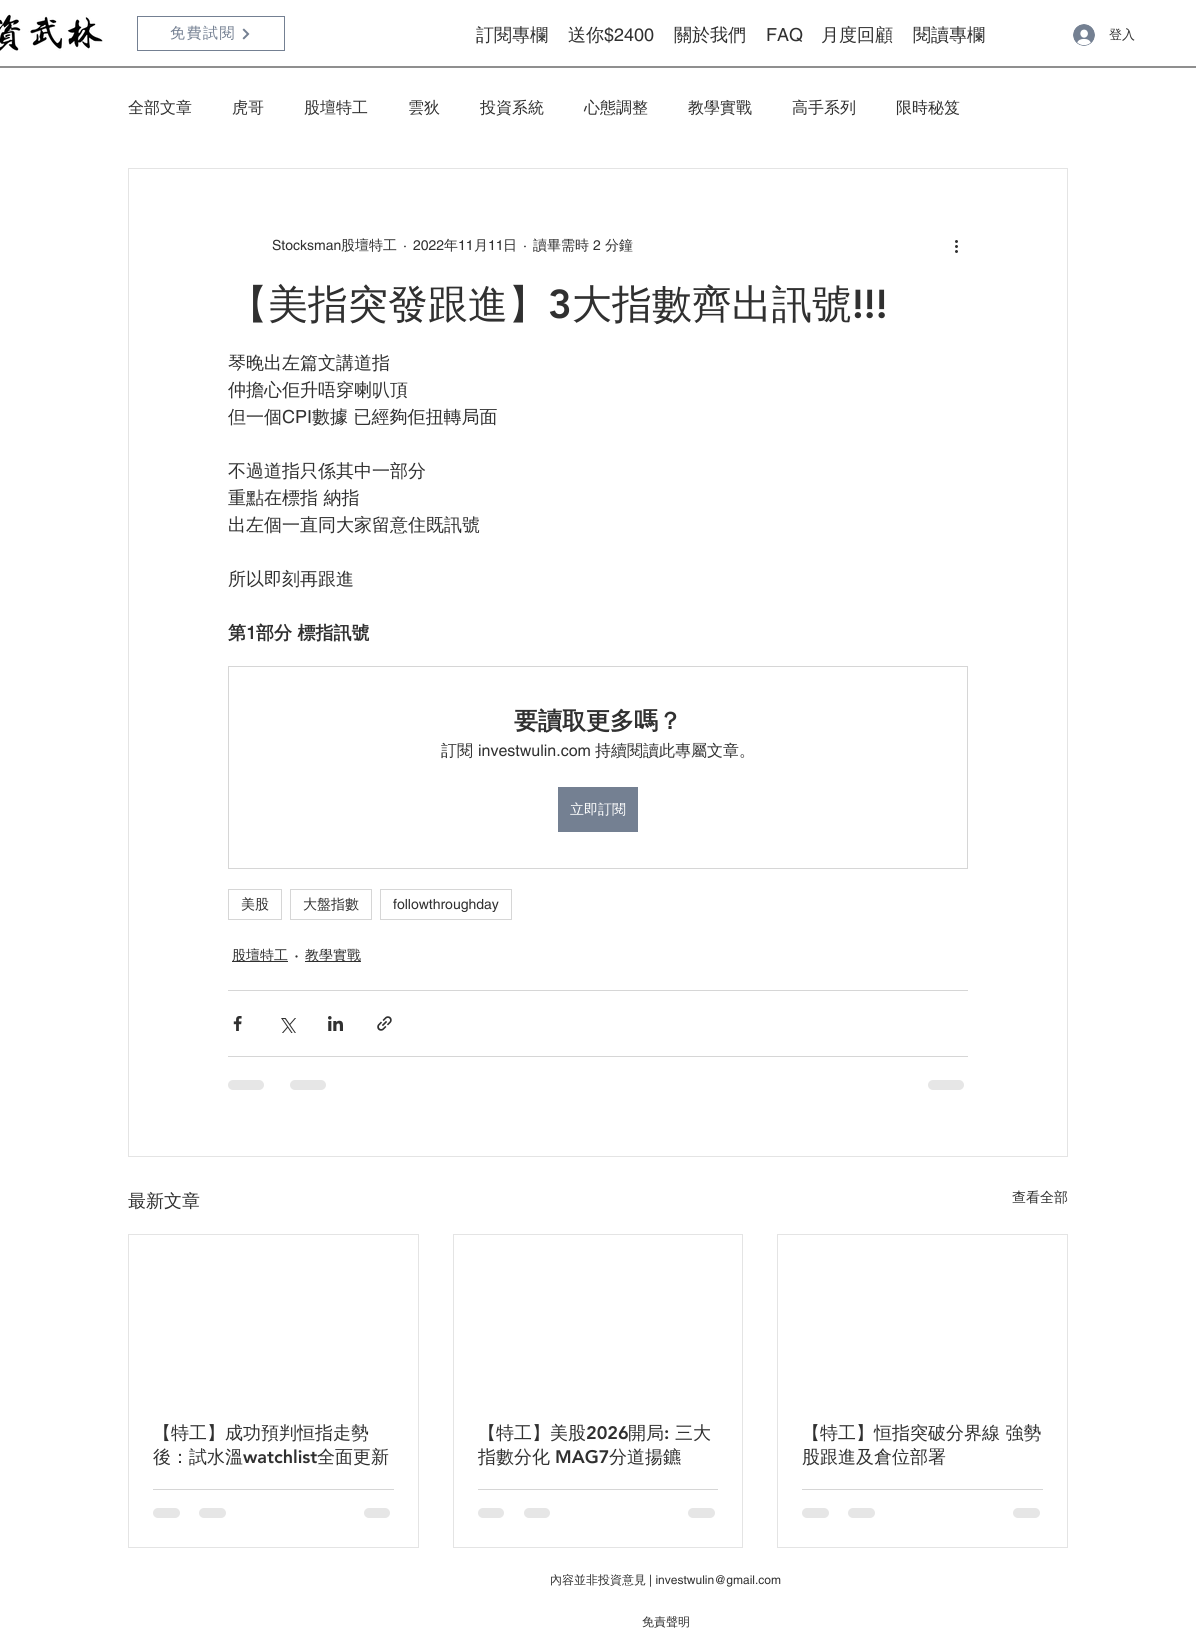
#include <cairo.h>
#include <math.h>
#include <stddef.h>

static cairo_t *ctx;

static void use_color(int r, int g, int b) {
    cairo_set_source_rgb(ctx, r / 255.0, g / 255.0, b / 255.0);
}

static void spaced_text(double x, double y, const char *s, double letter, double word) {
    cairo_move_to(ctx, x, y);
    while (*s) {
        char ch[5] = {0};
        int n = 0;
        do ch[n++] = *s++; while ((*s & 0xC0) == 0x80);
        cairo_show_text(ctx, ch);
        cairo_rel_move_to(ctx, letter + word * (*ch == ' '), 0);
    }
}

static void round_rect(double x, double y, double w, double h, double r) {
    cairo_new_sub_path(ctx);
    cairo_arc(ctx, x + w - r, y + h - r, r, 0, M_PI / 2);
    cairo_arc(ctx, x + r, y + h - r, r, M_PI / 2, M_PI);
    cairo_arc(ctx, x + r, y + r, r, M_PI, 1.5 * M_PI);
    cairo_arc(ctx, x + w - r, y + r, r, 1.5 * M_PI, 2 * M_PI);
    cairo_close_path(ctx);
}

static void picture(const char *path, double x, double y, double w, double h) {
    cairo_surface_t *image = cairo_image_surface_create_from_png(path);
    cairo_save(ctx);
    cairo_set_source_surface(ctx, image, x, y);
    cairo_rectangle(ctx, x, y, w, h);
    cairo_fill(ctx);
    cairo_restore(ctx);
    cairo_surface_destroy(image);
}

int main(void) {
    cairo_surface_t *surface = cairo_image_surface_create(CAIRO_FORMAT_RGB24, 1196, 1643);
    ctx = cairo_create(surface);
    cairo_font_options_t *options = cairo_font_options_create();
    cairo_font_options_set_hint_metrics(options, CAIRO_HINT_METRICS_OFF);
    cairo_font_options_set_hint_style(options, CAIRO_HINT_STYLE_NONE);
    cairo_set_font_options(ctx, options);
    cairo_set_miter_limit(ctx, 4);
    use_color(255, 255, 255);
    cairo_paint(ctx);
    picture("img1.png", 0, 14, 103, 37);
    cairo_rectangle(ctx, 137.5, 16.5, 147, 34);
    use_color(116, 128, 146);
    cairo_set_line_width(ctx, 1);
    cairo_stroke(ctx);
    cairo_select_font_face(ctx, "WenQuanYi Zen Hei Medium", CAIRO_FONT_SLANT_NORMAL, CAIRO_FONT_WEIGHT_NORMAL);
    cairo_set_font_size(ctx, 15);
    spaced_text(170, 38, "免費試閱", 1.5, 0);
    picture("img2.png", 242, 28, 8, 12);
    cairo_set_font_size(ctx, 18);
    use_color(48, 48, 48);
    cairo_move_to(ctx, 476, 41);
    cairo_show_text(ctx, "訂閱專欄");
    cairo_move_to(ctx, 568, 41);
    cairo_show_text(ctx, "送你");
    cairo_select_font_face(ctx, "helvetica", CAIRO_FONT_SLANT_NORMAL, CAIRO_FONT_WEIGHT_NORMAL);
    cairo_move_to(ctx, 604, 41);
    cairo_show_text(ctx, "$2400");
    cairo_select_font_face(ctx, "WenQuanYi Zen Hei Medium", CAIRO_FONT_SLANT_NORMAL, CAIRO_FONT_WEIGHT_NORMAL);
    cairo_move_to(ctx, 674, 41);
    cairo_show_text(ctx, "關於我們");
    cairo_select_font_face(ctx, "helvetica", CAIRO_FONT_SLANT_NORMAL, CAIRO_FONT_WEIGHT_NORMAL);
    cairo_move_to(ctx, 766, 41);
    cairo_show_text(ctx, "FAQ");
    cairo_select_font_face(ctx, "WenQuanYi Zen Hei Medium", CAIRO_FONT_SLANT_NORMAL, CAIRO_FONT_WEIGHT_NORMAL);
    cairo_move_to(ctx, 821, 41);
    cairo_show_text(ctx, "月度回顧");
    cairo_move_to(ctx, 913, 41);
    cairo_show_text(ctx, "閱讀專欄");
    picture("img3.png", 1073, 24, 22, 22);
    cairo_set_font_size(ctx, 13);
    cairo_move_to(ctx, 1109, 39);
    cairo_show_text(ctx, "登入");
    use_color(143, 143, 143);
    cairo_rectangle(ctx, 0, 66, 1196, 2);
    cairo_fill(ctx);
    cairo_set_font_size(ctx, 16);
    use_color(48, 48, 48);
    cairo_move_to(ctx, 128, 113);
    cairo_show_text(ctx, "全部文章");
    cairo_move_to(ctx, 232, 113);
    cairo_show_text(ctx, "虎哥");
    cairo_move_to(ctx, 304, 113);
    cairo_show_text(ctx, "股壇特工");
    cairo_move_to(ctx, 408, 113);
    cairo_show_text(ctx, "雲狄");
    cairo_move_to(ctx, 480, 113);
    cairo_show_text(ctx, "投資系統");
    cairo_move_to(ctx, 584, 113);
    cairo_show_text(ctx, "心態調整");
    cairo_move_to(ctx, 688, 113);
    cairo_show_text(ctx, "教學實戰");
    cairo_move_to(ctx, 792, 113);
    cairo_show_text(ctx, "高手系列");
    cairo_move_to(ctx, 896, 113);
    cairo_show_text(ctx, "限時秘笈");
    cairo_rectangle(ctx, 128.5, 168.5, 939, 988);
    use_color(228, 228, 228);
    cairo_stroke(ctx);
    cairo_select_font_face(ctx, "helvetica", CAIRO_FONT_SLANT_NORMAL, CAIRO_FONT_WEIGHT_NORMAL);
    cairo_set_font_size(ctx, 14);
    use_color(48, 48, 48);
    cairo_move_to(ctx, 272, 250);
    cairo_show_text(ctx, "Stocksman");
    cairo_select_font_face(ctx, "WenQuanYi Zen Hei Medium", CAIRO_FONT_SLANT_NORMAL, CAIRO_FONT_WEIGHT_NORMAL);
    cairo_move_to(ctx, 341, 250);
    cairo_show_text(ctx, "股壇特工");
    cairo_select_font_face(ctx, "helvetica", CAIRO_FONT_SLANT_NORMAL, CAIRO_FONT_WEIGHT_NORMAL);
    cairo_move_to(ctx, 403, 250);
    cairo_show_text(ctx, "·");
    cairo_move_to(ctx, 413, 250);
    cairo_show_text(ctx, "2022");
    cairo_select_font_face(ctx, "WenQuanYi Zen Hei Medium", CAIRO_FONT_SLANT_NORMAL, CAIRO_FONT_WEIGHT_NORMAL);
    cairo_move_to(ctx, 444, 250);
    cairo_show_text(ctx, "年");
    cairo_select_font_face(ctx, "helvetica", CAIRO_FONT_SLANT_NORMAL, CAIRO_FONT_WEIGHT_NORMAL);
    cairo_move_to(ctx, 458, 250);
    cairo_show_text(ctx, "11");
    cairo_select_font_face(ctx, "WenQuanYi Zen Hei Medium", CAIRO_FONT_SLANT_NORMAL, CAIRO_FONT_WEIGHT_NORMAL);
    cairo_move_to(ctx, 474, 250);
    cairo_show_text(ctx, "月");
    cairo_select_font_face(ctx, "helvetica", CAIRO_FONT_SLANT_NORMAL, CAIRO_FONT_WEIGHT_NORMAL);
    cairo_move_to(ctx, 488, 250);
    cairo_show_text(ctx, "11");
    cairo_select_font_face(ctx, "WenQuanYi Zen Hei Medium", CAIRO_FONT_SLANT_NORMAL, CAIRO_FONT_WEIGHT_NORMAL);
    cairo_move_to(ctx, 503, 250);
    cairo_show_text(ctx, "日");
    cairo_select_font_face(ctx, "helvetica", CAIRO_FONT_SLANT_NORMAL, CAIRO_FONT_WEIGHT_NORMAL);
    cairo_move_to(ctx, 523, 250);
    cairo_show_text(ctx, "·");
    cairo_select_font_face(ctx, "WenQuanYi Zen Hei Medium", CAIRO_FONT_SLANT_NORMAL, CAIRO_FONT_WEIGHT_NORMAL);
    cairo_move_to(ctx, 533, 250);
    cairo_show_text(ctx, "讀畢需時");
    cairo_select_font_face(ctx, "helvetica", CAIRO_FONT_SLANT_NORMAL, CAIRO_FONT_WEIGHT_NORMAL);
    cairo_move_to(ctx, 593, 250);
    cairo_show_text(ctx, "2");
    cairo_select_font_face(ctx, "WenQuanYi Zen Hei Medium", CAIRO_FONT_SLANT_NORMAL, CAIRO_FONT_WEIGHT_NORMAL);
    cairo_move_to(ctx, 605, 250);
    cairo_show_text(ctx, "分鐘");
    picture("img4.png", 955, 240, 3, 13);
    cairo_set_font_size(ctx, 40);
    cairo_move_to(ctx, 228, 318);
    cairo_show_text(ctx, "【美指突發跟進】");
    cairo_select_font_face(ctx, "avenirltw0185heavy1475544 Black", CAIRO_FONT_SLANT_NORMAL, CAIRO_FONT_WEIGHT_NORMAL);
    cairo_move_to(ctx, 548, 318);
    cairo_show_text(ctx, "3");
    cairo_select_font_face(ctx, "WenQuanYi Zen Hei Medium", CAIRO_FONT_SLANT_NORMAL, CAIRO_FONT_WEIGHT_NORMAL);
    cairo_move_to(ctx, 572, 318);
    cairo_show_text(ctx, "大指數齊出訊號");
    cairo_select_font_face(ctx, "avenirltw0185heavy1475544 Black", CAIRO_FONT_SLANT_NORMAL, CAIRO_FONT_WEIGHT_NORMAL);
    cairo_move_to(ctx, 852, 318);
    cairo_show_text(ctx, "!!!");
    cairo_select_font_face(ctx, "WenQuanYi Zen Hei Medium", CAIRO_FONT_SLANT_NORMAL, CAIRO_FONT_WEIGHT_NORMAL);
    cairo_set_font_size(ctx, 18);
    cairo_move_to(ctx, 228, 369);
    cairo_show_text(ctx, "琴晚出左篇文講道指");
    cairo_move_to(ctx, 228, 396);
    cairo_show_text(ctx, "仲擔心佢升唔穿喇叭頂");
    cairo_move_to(ctx, 228, 423);
    cairo_show_text(ctx, "但一個");
    cairo_select_font_face(ctx, "helvetica", CAIRO_FONT_SLANT_NORMAL, CAIRO_FONT_WEIGHT_NORMAL);
    cairo_move_to(ctx, 282, 423);
    cairo_show_text(ctx, "CPI");
    cairo_select_font_face(ctx, "WenQuanYi Zen Hei Medium", CAIRO_FONT_SLANT_NORMAL, CAIRO_FONT_WEIGHT_NORMAL);
    cairo_move_to(ctx, 312, 423);
    cairo_show_text(ctx, "數據 已經夠佢扭轉局面");
    cairo_move_to(ctx, 228, 477);
    cairo_show_text(ctx, "不過道指只係其中一部分");
    cairo_move_to(ctx, 228, 504);
    cairo_show_text(ctx, "重點在標指 納指");
    cairo_move_to(ctx, 228, 531);
    cairo_show_text(ctx, "出左個一直同大家留意住既訊號");
    cairo_move_to(ctx, 228, 585);
    cairo_show_text(ctx, "所以即刻再跟進");
    cairo_select_font_face(ctx, "WenQuanYi Zen Hei", CAIRO_FONT_SLANT_NORMAL, CAIRO_FONT_WEIGHT_BOLD);
    cairo_move_to(ctx, 228, 639);
    cairo_show_text(ctx, "第");
    cairo_select_font_face(ctx, "helvetica", CAIRO_FONT_SLANT_NORMAL, CAIRO_FONT_WEIGHT_BOLD);
    cairo_move_to(ctx, 246, 639);
    cairo_show_text(ctx, "1");
    cairo_select_font_face(ctx, "WenQuanYi Zen Hei", CAIRO_FONT_SLANT_NORMAL, CAIRO_FONT_WEIGHT_BOLD);
    cairo_move_to(ctx, 256, 639);
    cairo_show_text(ctx, "部分 標指訊號");
    cairo_rectangle(ctx, 228.5, 666.5, 739, 202);
    use_color(214, 214, 214);
    cairo_stroke(ctx);
    cairo_set_font_size(ctx, 24);
    use_color(48, 48, 48);
    cairo_move_to(ctx, 514, 729);
    cairo_show_text(ctx, "要讀取更多嗎？");
    cairo_select_font_face(ctx, "WenQuanYi Zen Hei Medium", CAIRO_FONT_SLANT_NORMAL, CAIRO_FONT_WEIGHT_NORMAL);
    cairo_set_font_size(ctx, 16);
    cairo_move_to(ctx, 441, 756);
    cairo_show_text(ctx, "訂閱");
    cairo_select_font_face(ctx, "helvetica", CAIRO_FONT_SLANT_NORMAL, CAIRO_FONT_WEIGHT_NORMAL);
    cairo_move_to(ctx, 478, 756);
    cairo_show_text(ctx, "investwulin.com");
    cairo_select_font_face(ctx, "WenQuanYi Zen Hei Medium", CAIRO_FONT_SLANT_NORMAL, CAIRO_FONT_WEIGHT_NORMAL);
    cairo_move_to(ctx, 595, 756);
    cairo_show_text(ctx, "持續閱讀此專屬文章。");
    use_color(116, 128, 146);
    cairo_rectangle(ctx, 558, 787, 80, 45);
    cairo_fill(ctx);
    cairo_set_font_size(ctx, 14);
    use_color(255, 255, 255);
    cairo_move_to(ctx, 570, 814);
    cairo_show_text(ctx, "立即訂閱");
    cairo_rectangle(ctx, 228.5, 889.5, 53, 30);
    use_color(214, 214, 214);
    cairo_stroke(ctx);
    use_color(48, 48, 48);
    cairo_move_to(ctx, 241, 909);
    cairo_show_text(ctx, "美股");
    cairo_rectangle(ctx, 290.5, 889.5, 81, 30);
    use_color(214, 214, 214);
    cairo_stroke(ctx);
    use_color(48, 48, 48);
    cairo_move_to(ctx, 303, 909);
    cairo_show_text(ctx, "大盤指數");
    cairo_rectangle(ctx, 380.5, 889.5, 131, 30);
    use_color(214, 214, 214);
    cairo_stroke(ctx);
    cairo_select_font_face(ctx, "helvetica", CAIRO_FONT_SLANT_NORMAL, CAIRO_FONT_WEIGHT_NORMAL);
    use_color(48, 48, 48);
    cairo_move_to(ctx, 393, 909);
    cairo_show_text(ctx, "followthroughday");
    cairo_rectangle(ctx, 232, 961, 56, 1);
    cairo_fill(ctx);
    cairo_select_font_face(ctx, "WenQuanYi Zen Hei Medium", CAIRO_FONT_SLANT_NORMAL, CAIRO_FONT_WEIGHT_NORMAL);
    cairo_move_to(ctx, 232, 960);
    cairo_show_text(ctx, "股壇特工");
    cairo_select_font_face(ctx, "helvetica", CAIRO_FONT_SLANT_NORMAL, CAIRO_FONT_WEIGHT_NORMAL);
    cairo_set_font_size(ctx, 18);
    cairo_move_to(ctx, 294, 961);
    cairo_show_text(ctx, "·");
    cairo_rectangle(ctx, 305, 961, 56, 1);
    cairo_fill(ctx);
    cairo_select_font_face(ctx, "WenQuanYi Zen Hei Medium", CAIRO_FONT_SLANT_NORMAL, CAIRO_FONT_WEIGHT_NORMAL);
    cairo_set_font_size(ctx, 14);
    cairo_move_to(ctx, 305, 960);
    cairo_show_text(ctx, "教學實戰");
    use_color(214, 214, 214);
    cairo_rectangle(ctx, 228, 990, 740, 1);
    cairo_fill(ctx);
    picture("img5.png", 233, 1016, 9, 15);
    picture("img6.png", 281, 1018, 15, 15);
    picture("img7.png", 328, 1016, 15, 15);
    picture("img8.png", 377, 1016, 15, 15);
    cairo_rectangle(ctx, 228, 1056, 740, 1);
    cairo_fill(ctx);
    use_color(230, 230, 230);
    round_rect(228, 1080, 36, 10, 5);
    cairo_fill(ctx);
    round_rect(290, 1080, 36, 10, 5);
    cairo_fill(ctx);
    round_rect(928, 1080, 36, 10, 5);
    cairo_fill(ctx);
    cairo_set_font_size(ctx, 18);
    use_color(48, 48, 48);
    cairo_move_to(ctx, 128, 1207);
    cairo_show_text(ctx, "最新文章");
    cairo_set_font_size(ctx, 14);
    cairo_move_to(ctx, 1012, 1202);
    cairo_show_text(ctx, "查看全部");
    cairo_rectangle(ctx, 128.5, 1234.5, 290, 313);
    use_color(228, 228, 228);
    cairo_stroke(ctx);
    cairo_set_font_size(ctx, 18);
    use_color(48, 48, 48);
    cairo_move_to(ctx, 153, 1439);
    cairo_show_text(ctx, "【特工】成功預判恒指走勢");
    cairo_move_to(ctx, 153, 1463);
    cairo_show_text(ctx, "後：試水溫");
    cairo_select_font_face(ctx, "avenirltw0185heavy1475544 Black", CAIRO_FONT_SLANT_NORMAL, CAIRO_FONT_WEIGHT_NORMAL);
    cairo_move_to(ctx, 243, 1463);
    cairo_show_text(ctx, "watchlist");
    cairo_select_font_face(ctx, "WenQuanYi Zen Hei Medium", CAIRO_FONT_SLANT_NORMAL, CAIRO_FONT_WEIGHT_NORMAL);
    cairo_move_to(ctx, 317, 1463);
    cairo_show_text(ctx, "全面更新");
    use_color(214, 214, 214);
    cairo_rectangle(ctx, 153, 1489, 241, 1);
    cairo_fill(ctx);
    use_color(230, 230, 230);
    round_rect(153, 1508, 27, 10, 5);
    cairo_fill(ctx);
    round_rect(199, 1508, 27, 10, 5);
    cairo_fill(ctx);
    round_rect(364, 1508, 26, 10, 5);
    cairo_fill(ctx);
    cairo_rectangle(ctx, 453.5, 1234.5, 289, 313);
    use_color(228, 228, 228);
    cairo_stroke(ctx);
    use_color(48, 48, 48);
    cairo_move_to(ctx, 478, 1439);
    cairo_show_text(ctx, "【特工】美股");
    cairo_select_font_face(ctx, "avenirltw0185heavy1475544 Black", CAIRO_FONT_SLANT_NORMAL, CAIRO_FONT_WEIGHT_NORMAL);
    cairo_move_to(ctx, 586, 1439);
    cairo_show_text(ctx, "2026");
    cairo_select_font_face(ctx, "WenQuanYi Zen Hei Medium", CAIRO_FONT_SLANT_NORMAL, CAIRO_FONT_WEIGHT_NORMAL);
    cairo_move_to(ctx, 628, 1439);
    cairo_show_text(ctx, "開局");
    cairo_select_font_face(ctx, "avenirltw0185heavy1475544 Black", CAIRO_FONT_SLANT_NORMAL, CAIRO_FONT_WEIGHT_NORMAL);
    cairo_move_to(ctx, 664, 1439);
    cairo_show_text(ctx, ":");
    cairo_select_font_face(ctx, "WenQuanYi Zen Hei Medium", CAIRO_FONT_SLANT_NORMAL, CAIRO_FONT_WEIGHT_NORMAL);
    cairo_move_to(ctx, 675, 1439);
    cairo_show_text(ctx, "三大");
    cairo_move_to(ctx, 478, 1463);
    cairo_show_text(ctx, "指數分化");
    cairo_select_font_face(ctx, "avenirltw0185heavy1475544 Black", CAIRO_FONT_SLANT_NORMAL, CAIRO_FONT_WEIGHT_NORMAL);
    cairo_move_to(ctx, 555, 1463);
    cairo_show_text(ctx, "MAG7");
    cairo_select_font_face(ctx, "WenQuanYi Zen Hei Medium", CAIRO_FONT_SLANT_NORMAL, CAIRO_FONT_WEIGHT_NORMAL);
    cairo_move_to(ctx, 609, 1463);
    cairo_show_text(ctx, "分道揚鑣");
    use_color(214, 214, 214);
    cairo_rectangle(ctx, 478, 1489, 240, 1);
    cairo_fill(ctx);
    use_color(230, 230, 230);
    round_rect(478, 1508, 26, 10, 5);
    cairo_fill(ctx);
    round_rect(524, 1508, 26, 10, 5);
    cairo_fill(ctx);
    round_rect(688, 1508, 27, 10, 5);
    cairo_fill(ctx);
    cairo_rectangle(ctx, 777.5, 1234.5, 290, 313);
    use_color(228, 228, 228);
    cairo_stroke(ctx);
    use_color(48, 48, 48);
    cairo_move_to(ctx, 802, 1439);
    cairo_show_text(ctx, "【特工】恒指突破分界線 強勢");
    cairo_move_to(ctx, 802, 1463);
    cairo_show_text(ctx, "股跟進及倉位部署");
    use_color(214, 214, 214);
    cairo_rectangle(ctx, 802, 1489, 241, 1);
    cairo_fill(ctx);
    use_color(230, 230, 230);
    round_rect(802, 1508, 27, 10, 5);
    cairo_fill(ctx);
    round_rect(848, 1508, 27, 10, 5);
    cairo_fill(ctx);
    round_rect(1013, 1508, 27, 10, 5);
    cairo_fill(ctx);
    cairo_set_font_size(ctx, 12);
    use_color(48, 48, 48);
    cairo_move_to(ctx, 550, 1584);
    cairo_show_text(ctx, "內容並非投資意見");
    cairo_select_font_face(ctx, "helvetica", CAIRO_FONT_SLANT_NORMAL, CAIRO_FONT_WEIGHT_NORMAL);
    cairo_move_to(ctx, 649, 1584);
    cairo_show_text(ctx, "| investwulin@gmail.com");
    cairo_select_font_face(ctx, "WenQuanYi Zen Hei Medium", CAIRO_FONT_SLANT_NORMAL, CAIRO_FONT_WEIGHT_NORMAL);
    cairo_move_to(ctx, 642, 1626);
    cairo_show_text(ctx, "免責聲明");
    cairo_surface_write_to_png(surface, "result.png");
    cairo_font_options_destroy(options);
    cairo_destroy(ctx);
    cairo_surface_destroy(surface);
    return 0;
}
